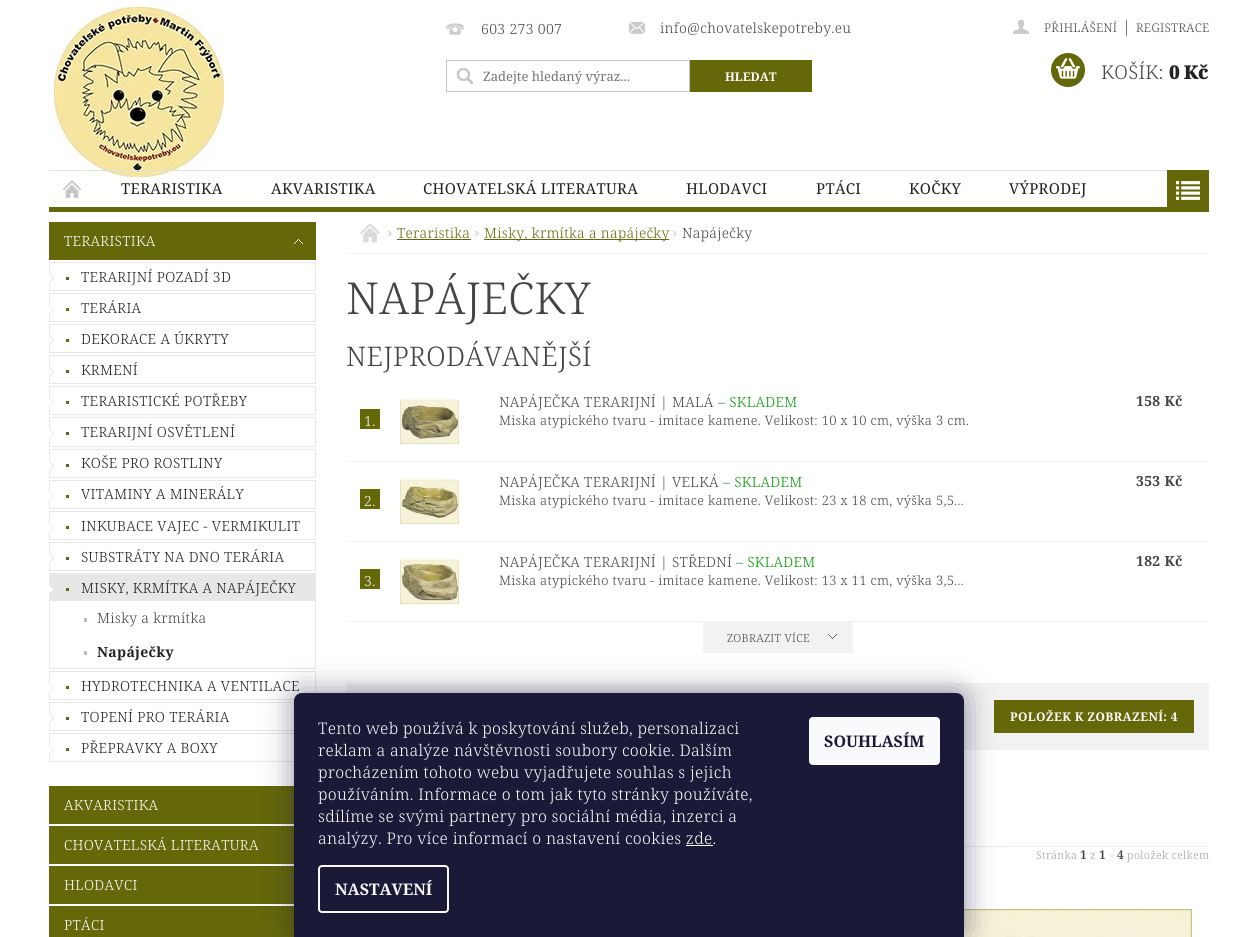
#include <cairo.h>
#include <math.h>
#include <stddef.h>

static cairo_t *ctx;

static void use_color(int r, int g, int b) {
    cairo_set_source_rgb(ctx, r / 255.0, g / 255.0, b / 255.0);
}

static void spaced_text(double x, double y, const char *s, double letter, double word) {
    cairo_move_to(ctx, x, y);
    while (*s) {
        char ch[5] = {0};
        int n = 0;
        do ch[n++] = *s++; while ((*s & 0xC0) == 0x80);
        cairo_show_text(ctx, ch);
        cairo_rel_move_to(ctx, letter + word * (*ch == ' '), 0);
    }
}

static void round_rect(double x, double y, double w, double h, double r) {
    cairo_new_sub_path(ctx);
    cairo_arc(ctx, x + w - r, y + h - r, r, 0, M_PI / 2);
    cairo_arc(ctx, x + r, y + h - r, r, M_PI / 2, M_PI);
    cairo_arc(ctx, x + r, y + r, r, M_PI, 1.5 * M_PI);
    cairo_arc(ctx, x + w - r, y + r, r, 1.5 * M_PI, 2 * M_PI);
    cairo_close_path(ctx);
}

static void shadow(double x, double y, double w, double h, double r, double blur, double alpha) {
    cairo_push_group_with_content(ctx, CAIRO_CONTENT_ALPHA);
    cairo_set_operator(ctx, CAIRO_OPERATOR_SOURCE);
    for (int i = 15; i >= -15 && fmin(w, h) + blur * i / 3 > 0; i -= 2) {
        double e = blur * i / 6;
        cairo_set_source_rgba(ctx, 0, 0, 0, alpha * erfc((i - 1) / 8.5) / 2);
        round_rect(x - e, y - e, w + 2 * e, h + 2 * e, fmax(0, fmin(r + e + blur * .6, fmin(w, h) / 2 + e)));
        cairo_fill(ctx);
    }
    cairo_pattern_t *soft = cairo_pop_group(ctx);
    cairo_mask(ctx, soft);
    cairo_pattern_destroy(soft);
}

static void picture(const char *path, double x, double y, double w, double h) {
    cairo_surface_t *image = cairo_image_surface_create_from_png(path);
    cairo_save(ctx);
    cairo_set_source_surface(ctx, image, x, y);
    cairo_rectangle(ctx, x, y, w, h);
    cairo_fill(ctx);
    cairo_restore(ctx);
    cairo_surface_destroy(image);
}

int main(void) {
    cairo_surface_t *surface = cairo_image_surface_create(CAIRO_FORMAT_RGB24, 1258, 937);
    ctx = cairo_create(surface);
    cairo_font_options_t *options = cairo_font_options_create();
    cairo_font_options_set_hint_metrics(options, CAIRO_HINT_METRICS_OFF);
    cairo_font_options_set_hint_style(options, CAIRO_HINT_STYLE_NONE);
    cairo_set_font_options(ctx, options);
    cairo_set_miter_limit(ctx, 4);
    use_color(255, 255, 255);
    cairo_paint(ctx);
    use_color(100, 104, 9);
    cairo_rectangle(ctx, 49, 207, 1118, 5);
    cairo_fill(ctx);
    picture("img1.png", 54, 7, 170, 170);
    picture("img2.png", 446, 23, 18, 12);
    cairo_select_font_face(ctx, "Noto Serif Light", CAIRO_FONT_SLANT_NORMAL, CAIRO_FONT_WEIGHT_NORMAL);
    cairo_set_font_size(ctx, 14);
    use_color(68, 68, 68);
    spaced_text(481, 34, "603 273 007", 0.32, 0);
    picture("img3.png", 629, 21, 16, 13);
    spaced_text(660, 33, "info@chovatelskepotreby.eu", 0.32, 0);
    picture("img4.png", 457, 68, 16, 16);
    cairo_rectangle(ctx, 446.5, 60.5, 243, 31);
    use_color(198, 198, 198);
    cairo_set_line_width(ctx, 1);
    cairo_stroke(ctx);
    cairo_select_font_face(ctx, "Noto Serif", CAIRO_FONT_SLANT_NORMAL, CAIRO_FONT_WEIGHT_NORMAL);
    cairo_set_font_size(ctx, 13);
    use_color(117, 117, 117);
    cairo_move_to(ctx, 483, 81);
    cairo_show_text(ctx, "Zadejte hledaný výraz...");
    use_color(100, 104, 9);
    cairo_rectangle(ctx, 690, 60, 122, 32);
    cairo_fill(ctx);
    cairo_select_font_face(ctx, "Noto Serif", CAIRO_FONT_SLANT_NORMAL, CAIRO_FONT_WEIGHT_BOLD);
    cairo_set_font_size(ctx, 12);
    use_color(255, 255, 255);
    cairo_move_to(ctx, 725, 81);
    cairo_show_text(ctx, "HLEDAT");
    picture("img5.png", 1013, 19, 16, 15);
    cairo_select_font_face(ctx, "Noto Serif Light", CAIRO_FONT_SLANT_NORMAL, CAIRO_FONT_WEIGHT_NORMAL);
    use_color(68, 68, 68);
    spaced_text(1044, 32, "PŘIHLÁŠENÍ", 0.32, 0);
    cairo_set_font_size(ctx, 16);
    spaced_text(1122, 32, "|", 0.32, 0);
    cairo_set_font_size(ctx, 12);
    spaced_text(1136, 32, "REGISTRACE", 0.32, 0);
    use_color(100, 104, 9);
    cairo_new_path(ctx);
    cairo_arc(ctx, 1068, 70, 17, 0, 2 * M_PI);
    cairo_fill(ctx);
    picture("img6.png", 1056, 58, 24, 21);
    cairo_set_font_size(ctx, 19);
    use_color(68, 68, 68);
    spaced_text(1101, 79, "KOŠÍK:", 0.32, 0);
    cairo_select_font_face(ctx, "Noto Serif Black", CAIRO_FONT_SLANT_NORMAL, CAIRO_FONT_WEIGHT_NORMAL);
    use_color(34, 34, 34);
    spaced_text(1169, 79, "0 Kč", -0.5, 0);
    use_color(224, 224, 224);
    cairo_rectangle(ctx, 49, 170, 1118, 1);
    cairo_fill(ctx);
    picture("img7.png", 63, 180, 18, 18);
    cairo_select_font_face(ctx, "Noto Serif", CAIRO_FONT_SLANT_NORMAL, CAIRO_FONT_WEIGHT_NORMAL);
    cairo_set_font_size(ctx, 15);
    use_color(34, 34, 34);
    spaced_text(121, 194, "TERARISTIKA", 0.32, 0);
    spaced_text(271, 194, "AKVARISTIKA", 0.32, 0);
    spaced_text(423, 194, "CHOVATELSKÁ LITERATURA", 0.32, 0);
    spaced_text(686, 194, "HLODAVCI", 0.32, 0);
    spaced_text(816, 194, "PTÁCI", 0.32, 0);
    spaced_text(909, 194, "KOČKY", 0.32, 0);
    spaced_text(1009, 194, "VÝPRODEJ", 0.32, 0);
    use_color(100, 104, 9);
    cairo_rectangle(ctx, 1167, 170, 42, 42);
    cairo_fill(ctx);
    picture("img8.png", 1176, 181, 24, 19);
    cairo_rectangle(ctx, 49, 222, 267, 38);
    cairo_fill(ctx);
    picture("img9.png", 294, 239, 9, 5);
    cairo_select_font_face(ctx, "Noto Serif Light", CAIRO_FONT_SLANT_NORMAL, CAIRO_FONT_WEIGHT_NORMAL);
    cairo_set_font_size(ctx, 14);
    use_color(255, 255, 255);
    spaced_text(64, 246, "TERARISTIKA", 0.32, 0);
    cairo_rectangle(ctx, 49.5, 262.5, 266, 28);
    use_color(231, 231, 231);
    cairo_stroke(ctx);
    picture("img10.png", 49, 275, 5, 7);
    use_color(100, 104, 9);
    cairo_rectangle(ctx, 66, 277, 3, 3);
    cairo_fill(ctx);
    use_color(34, 34, 34);
    spaced_text(81, 282, "TERARIJNÍ POZADÍ 3D", 0.32, 0);
    cairo_rectangle(ctx, 49.5, 293.5, 266, 28);
    use_color(231, 231, 231);
    cairo_stroke(ctx);
    picture("img10.png", 49, 306, 5, 7);
    use_color(100, 104, 9);
    cairo_rectangle(ctx, 66, 308, 3, 3);
    cairo_fill(ctx);
    use_color(34, 34, 34);
    spaced_text(81, 313, "TERÁRIA", 0.32, 0);
    cairo_rectangle(ctx, 49.5, 324.5, 266, 28);
    use_color(231, 231, 231);
    cairo_stroke(ctx);
    picture("img10.png", 49, 337, 5, 7);
    use_color(100, 104, 9);
    cairo_rectangle(ctx, 66, 339, 3, 3);
    cairo_fill(ctx);
    use_color(34, 34, 34);
    spaced_text(81, 344, "DEKORACE A ÚKRYTY", 0.32, 0);
    cairo_rectangle(ctx, 49.5, 355.5, 266, 28);
    use_color(231, 231, 231);
    cairo_stroke(ctx);
    picture("img10.png", 49, 368, 5, 7);
    use_color(100, 104, 9);
    cairo_rectangle(ctx, 66, 370, 3, 3);
    cairo_fill(ctx);
    use_color(34, 34, 34);
    spaced_text(81, 375, "KRMENÍ", 0.32, 0);
    cairo_rectangle(ctx, 49.5, 386.5, 266, 28);
    use_color(231, 231, 231);
    cairo_stroke(ctx);
    picture("img10.png", 49, 399, 5, 7);
    use_color(100, 104, 9);
    cairo_rectangle(ctx, 66, 401, 3, 3);
    cairo_fill(ctx);
    use_color(34, 34, 34);
    spaced_text(81, 406, "TERARISTICKÉ POTŘEBY", 0.32, 0);
    cairo_rectangle(ctx, 49.5, 417.5, 266, 29);
    use_color(231, 231, 231);
    cairo_stroke(ctx);
    picture("img11.png", 49, 430, 5, 8);
    use_color(100, 104, 9);
    cairo_rectangle(ctx, 66, 432, 3, 3);
    cairo_fill(ctx);
    use_color(34, 34, 34);
    spaced_text(81, 437, "TERARIJNÍ OSVĚTLENÍ", 0.32, 0);
    cairo_rectangle(ctx, 49.5, 449.5, 266, 28);
    use_color(231, 231, 231);
    cairo_stroke(ctx);
    picture("img10.png", 49, 462, 5, 7);
    use_color(100, 104, 9);
    cairo_rectangle(ctx, 66, 464, 3, 3);
    cairo_fill(ctx);
    use_color(34, 34, 34);
    spaced_text(81, 468, "KOŠE PRO ROSTLINY", 0.32, 0);
    cairo_rectangle(ctx, 49.5, 480.5, 266, 28);
    use_color(231, 231, 231);
    cairo_stroke(ctx);
    picture("img10.png", 49, 493, 5, 7);
    use_color(100, 104, 9);
    cairo_rectangle(ctx, 66, 495, 3, 3);
    cairo_fill(ctx);
    use_color(34, 34, 34);
    spaced_text(81, 499, "VITAMINY A MINERÁLY", 0.32, 0);
    cairo_rectangle(ctx, 49.5, 511.5, 266, 28);
    use_color(231, 231, 231);
    cairo_stroke(ctx);
    picture("img10.png", 49, 524, 5, 7);
    use_color(100, 104, 9);
    cairo_rectangle(ctx, 66, 526, 3, 3);
    cairo_fill(ctx);
    use_color(34, 34, 34);
    spaced_text(81, 531, "INKUBACE VAJEC - VERMIKULIT", 0.32, 0);
    cairo_rectangle(ctx, 49.5, 542.5, 266, 28);
    use_color(231, 231, 231);
    cairo_stroke(ctx);
    picture("img10.png", 49, 555, 5, 7);
    use_color(100, 104, 9);
    cairo_rectangle(ctx, 66, 557, 3, 3);
    cairo_fill(ctx);
    use_color(34, 34, 34);
    spaced_text(81, 562, "SUBSTRÁTY NA DNO TERÁRIA", 0.32, 0);
    cairo_rectangle(ctx, 49.5, 573.5, 266, 95);
    use_color(231, 231, 231);
    cairo_stroke(ctx);
    cairo_rectangle(ctx, 50, 574, 265, 27);
    cairo_fill(ctx);
    picture("img12.png", 49, 586, 4, 7);
    use_color(100, 104, 9);
    cairo_rectangle(ctx, 66, 588, 3, 3);
    cairo_fill(ctx);
    use_color(34, 34, 34);
    spaced_text(81, 593, "MISKY, KRMÍTKA A NAPÁJEČKY", 0.32, 0);
    use_color(188, 188, 188);
    cairo_rectangle(ctx, 84, 618, 3, 4);
    cairo_fill(ctx);
    use_color(68, 68, 68);
    spaced_text(97, 623, "Misky a krmítka", 0.32, 0);
    use_color(188, 188, 188);
    cairo_rectangle(ctx, 84, 651, 3, 4);
    cairo_fill(ctx);
    cairo_select_font_face(ctx, "Noto Serif", CAIRO_FONT_SLANT_NORMAL, CAIRO_FONT_WEIGHT_BOLD);
    use_color(34, 34, 34);
    spaced_text(97, 657, "Napáječky", 0.32, 0);
    cairo_rectangle(ctx, 49.5, 671.5, 266, 28);
    use_color(231, 231, 231);
    cairo_stroke(ctx);
    picture("img10.png", 49, 684, 5, 7);
    use_color(100, 104, 9);
    cairo_rectangle(ctx, 66, 686, 3, 3);
    cairo_fill(ctx);
    cairo_select_font_face(ctx, "Noto Serif Light", CAIRO_FONT_SLANT_NORMAL, CAIRO_FONT_WEIGHT_NORMAL);
    use_color(34, 34, 34);
    spaced_text(81, 691, "HYDROTECHNIKA A VENTILACE", 0.32, 0);
    cairo_rectangle(ctx, 49.5, 702.5, 266, 28);
    use_color(231, 231, 231);
    cairo_stroke(ctx);
    picture("img10.png", 49, 715, 5, 7);
    use_color(100, 104, 9);
    cairo_rectangle(ctx, 66, 717, 3, 3);
    cairo_fill(ctx);
    use_color(34, 34, 34);
    spaced_text(81, 722, "TOPENÍ PRO TERÁRIA", 0.32, 0);
    cairo_rectangle(ctx, 49.5, 733.5, 266, 28);
    use_color(231, 231, 231);
    cairo_stroke(ctx);
    picture("img10.png", 49, 746, 5, 7);
    use_color(100, 104, 9);
    cairo_rectangle(ctx, 66, 748, 3, 3);
    cairo_fill(ctx);
    use_color(34, 34, 34);
    spaced_text(81, 753, "PŘEPRAVKY A BOXY", 0.32, 0);
    use_color(100, 104, 9);
    cairo_rectangle(ctx, 49, 786, 245, 38);
    cairo_fill(ctx);
    use_color(255, 255, 255);
    spaced_text(64, 810, "AKVARISTIKA", 0.32, 0);
    use_color(100, 104, 9);
    cairo_rectangle(ctx, 49, 826, 245, 38);
    cairo_fill(ctx);
    use_color(255, 255, 255);
    spaced_text(64, 850, "CHOVATELSKÁ LITERATURA", 0.32, 0);
    use_color(100, 104, 9);
    cairo_rectangle(ctx, 49, 866, 245, 38);
    cairo_fill(ctx);
    use_color(255, 255, 255);
    spaced_text(64, 890, "HLODAVCI", 0.32, 0);
    use_color(100, 104, 9);
    cairo_rectangle(ctx, 49, 906, 245, 31);
    cairo_fill(ctx);
    use_color(255, 255, 255);
    spaced_text(64, 930, "PTÁCI", 0.32, 0);
    use_color(242, 242, 242);
    cairo_rectangle(ctx, 346, 253, 863, 1);
    cairo_fill(ctx);
    picture("img13.png", 360, 224, 20, 19);
    picture("img14.png", 388, 231, 4, 5);
    use_color(100, 104, 9);
    spaced_text(397, 238, "Teraristika", 0.32, 0);
    cairo_rectangle(ctx, 397, 239, 74, 1);
    cairo_fill(ctx);
    picture("img14.png", 475, 231, 4, 5);
    cairo_rectangle(ctx, 484, 239, 185, 1);
    cairo_fill(ctx);
    spaced_text(484, 238, "Misky, krmítka a napáječky", 0.32, 0);
    picture("img14.png", 673, 231, 4, 5);
    use_color(68, 68, 68);
    spaced_text(682, 238, "Napáječky", 0.32, 0);
    cairo_set_font_size(ctx, 44);
    spaced_text(346, 314, "NAPÁJEČKY", 0.32, 0);
    cairo_set_font_size(ctx, 27);
    spaced_text(346, 366, "NEJPRODÁVANĚJŠÍ", 0.32, 0);
    use_color(242, 242, 242);
    cairo_rectangle(ctx, 346, 461, 863, 1);
    cairo_fill(ctx);
    cairo_set_font_size(ctx, 14);
    use_color(68, 68, 68);
    spaced_text(499, 407, "NAPÁJEČKA TERARIJNÍ | MALÁ", 0.32, 0);
    use_color(0, 153, 1);
    spaced_text(718, 407, "– SKLADEM", 0.32, 0);
    cairo_set_font_size(ctx, 13);
    use_color(68, 68, 68);
    spaced_text(499, 425, "Miska atypického tvaru - imitace kamene. Velikost: 10 x 10 cm, výška 3 cm.", 0.32, 0);
    cairo_select_font_face(ctx, "Noto Serif", CAIRO_FONT_SLANT_NORMAL, CAIRO_FONT_WEIGHT_BOLD);
    cairo_set_font_size(ctx, 14);
    spaced_text(1136, 406, "158 Kč", 0.32, 0);
    use_color(100, 104, 9);
    cairo_rectangle(ctx, 360, 409, 20, 20);
    cairo_fill(ctx);
    cairo_select_font_face(ctx, "Noto Serif Light", CAIRO_FONT_SLANT_NORMAL, CAIRO_FONT_WEIGHT_NORMAL);
    use_color(255, 255, 255);
    spaced_text(364, 426, "1.", 0.32, 0);
    picture("img15.png", 400, 398, 59, 47);
    use_color(242, 242, 242);
    cairo_rectangle(ctx, 346, 541, 863, 1);
    cairo_fill(ctx);
    use_color(68, 68, 68);
    spaced_text(499, 487, "NAPÁJEČKA TERARIJNÍ | VELKÁ", 0.32, 0);
    use_color(0, 153, 1);
    spaced_text(723, 487, "– SKLADEM", 0.32, 0);
    cairo_set_font_size(ctx, 13);
    use_color(68, 68, 68);
    spaced_text(499, 505, "Miska atypického tvaru - imitace kamene. Velikost: 23 x 18 cm, výška 5,5...", 0.32, 0);
    cairo_select_font_face(ctx, "Noto Serif", CAIRO_FONT_SLANT_NORMAL, CAIRO_FONT_WEIGHT_BOLD);
    cairo_set_font_size(ctx, 14);
    spaced_text(1136, 486, "353 Kč", 0.32, 0);
    use_color(100, 104, 9);
    cairo_rectangle(ctx, 360, 489, 20, 20);
    cairo_fill(ctx);
    cairo_select_font_face(ctx, "Noto Serif Light", CAIRO_FONT_SLANT_NORMAL, CAIRO_FONT_WEIGHT_NORMAL);
    use_color(255, 255, 255);
    spaced_text(364, 506, "2.", 0.32, 0);
    picture("img16.png", 400, 478, 59, 47);
    use_color(242, 242, 242);
    cairo_rectangle(ctx, 346, 621, 863, 1);
    cairo_fill(ctx);
    use_color(68, 68, 68);
    spaced_text(499, 567, "NAPÁJEČKA TERARIJNÍ | STŘEDNÍ", 0.32, 0);
    use_color(0, 153, 1);
    spaced_text(736, 567, "– SKLADEM", 0.32, 0);
    cairo_set_font_size(ctx, 13);
    use_color(68, 68, 68);
    spaced_text(499, 585, "Miska atypického tvaru - imitace kamene. Velikost: 13 x 11 cm, výška 3,5...", 0.32, 0);
    cairo_select_font_face(ctx, "Noto Serif", CAIRO_FONT_SLANT_NORMAL, CAIRO_FONT_WEIGHT_BOLD);
    cairo_set_font_size(ctx, 14);
    spaced_text(1136, 566, "182 Kč", 0.32, 0);
    use_color(100, 104, 9);
    cairo_rectangle(ctx, 360, 569, 20, 20);
    cairo_fill(ctx);
    cairo_select_font_face(ctx, "Noto Serif Light", CAIRO_FONT_SLANT_NORMAL, CAIRO_FONT_WEIGHT_NORMAL);
    use_color(255, 255, 255);
    spaced_text(364, 586, "3.", 0.32, 0);
    picture("img17.png", 400, 558, 59, 47);
    use_color(242, 242, 242);
    cairo_rectangle(ctx, 703, 622, 150, 31);
    cairo_fill(ctx);
    picture("img18.png", 828, 634, 9, 5);
    cairo_set_font_size(ctx, 11);
    use_color(68, 68, 68);
    spaced_text(727, 642, "ZOBRAZIT VÍCE", 0.32, 0);
    use_color(242, 242, 242);
    cairo_rectangle(ctx, 346, 683, 863, 67);
    cairo_fill(ctx);
    use_color(100, 104, 9);
    cairo_rectangle(ctx, 994, 700, 200, 33);
    cairo_fill(ctx);
    cairo_select_font_face(ctx, "Noto Serif", CAIRO_FONT_SLANT_NORMAL, CAIRO_FONT_WEIGHT_BOLD);
    cairo_set_font_size(ctx, 12);
    use_color(255, 255, 255);
    spaced_text(1010, 721, "POLOŽEK K ZOBRAZENÍ: 4", 0.32, 0);
    use_color(237, 237, 237);
    cairo_rectangle(ctx, 964, 846, 245, 1);
    cairo_fill(ctx);
    cairo_select_font_face(ctx, "Noto Serif Light", CAIRO_FONT_SLANT_NORMAL, CAIRO_FONT_WEIGHT_NORMAL);
    cairo_set_font_size(ctx, 11);
    use_color(160, 160, 160);
    spaced_text(1036, 859, "Stránka", 0.32, 0);
    cairo_select_font_face(ctx, "Noto Serif SemiBold", CAIRO_FONT_SLANT_NORMAL, CAIRO_FONT_WEIGHT_NORMAL);
    cairo_set_font_size(ctx, 12);
    use_color(68, 68, 68);
    spaced_text(1080, 859, "1", 0.32, 0);
    cairo_select_font_face(ctx, "Noto Serif Light", CAIRO_FONT_SLANT_NORMAL, CAIRO_FONT_WEIGHT_NORMAL);
    cairo_set_font_size(ctx, 11);
    use_color(160, 160, 160);
    spaced_text(1090, 859, "z", 0.32, 0);
    cairo_select_font_face(ctx, "Noto Serif SemiBold", CAIRO_FONT_SLANT_NORMAL, CAIRO_FONT_WEIGHT_NORMAL);
    cairo_set_font_size(ctx, 12);
    use_color(68, 68, 68);
    spaced_text(1099, 859, "1", 0.32, 0);
    cairo_select_font_face(ctx, "Noto Serif Light", CAIRO_FONT_SLANT_NORMAL, CAIRO_FONT_WEIGHT_NORMAL);
    cairo_set_font_size(ctx, 11);
    use_color(160, 160, 160);
    spaced_text(1110, 859, "-", 0.32, 0);
    cairo_select_font_face(ctx, "Noto Serif SemiBold", CAIRO_FONT_SLANT_NORMAL, CAIRO_FONT_WEIGHT_NORMAL);
    cairo_set_font_size(ctx, 12);
    use_color(68, 68, 68);
    spaced_text(1117, 859, "4", 0.32, 0);
    cairo_select_font_face(ctx, "Noto Serif Light", CAIRO_FONT_SLANT_NORMAL, CAIRO_FONT_WEIGHT_NORMAL);
    cairo_set_font_size(ctx, 11);
    use_color(160, 160, 160);
    spaced_text(1127, 859, "položek celkem", 0.32, 0);
    picture("img19.png", 964, 909, 228, 28);
    use_color(27, 25, 57);
    shadow(294, 693, 670, 244, 8, 15, 0.5);
    use_color(26, 25, 55);
    cairo_new_path(ctx);
    cairo_move_to(ctx, 302, 693);
    cairo_line_to(ctx, 956, 693);
    cairo_curve_to(ctx, 960.5, 693, 964, 696.5, 964, 701);
    cairo_line_to(ctx, 964, 937);
    cairo_line_to(ctx, 294, 937);
    cairo_line_to(ctx, 294, 701);
    cairo_curve_to(ctx, 294, 696.5, 297.5, 693, 302, 693);
    cairo_close_path(ctx);
    cairo_fill(ctx);
    cairo_set_font_size(ctx, 16);
    use_color(248, 250, 251);
    spaced_text(318, 734, "Tento web používá k poskytování služeb, personalizaci", 0.32, 0);
    spaced_text(318, 756, "reklam a analýze návštěvnosti soubory cookie. Dalším", 0.32, 0);
    spaced_text(318, 778, "procházením tohoto webu vyjadřujete souhlas s jejich", 0.32, 0);
    spaced_text(318, 800, "používáním. Informace o tom jak tyto stránky používáte,", 0.32, 0);
    spaced_text(318, 822, "sdílíme se svými partnery pro sociální média, inzerci a", 0.32, 0);
    spaced_text(318, 844, "analýzy. Pro více informací o nastavení cookies zde.", 0.32, 0);
    cairo_rectangle(ctx, 686, 845, 27, 1);
    cairo_fill(ctx);
    round_rect(319, 866, 129, 46, 3);
    cairo_set_line_width(ctx, 2);
    cairo_stroke(ctx);
    cairo_select_font_face(ctx, "Noto Serif", CAIRO_FONT_SLANT_NORMAL, CAIRO_FONT_WEIGHT_BOLD);
    cairo_move_to(ctx, 335, 895);
    cairo_show_text(ctx, "NASTAVENÍ");
    round_rect(809, 717, 131, 48, 4);
    cairo_fill(ctx);
    use_color(26, 25, 55);
    cairo_move_to(ctx, 824, 747);
    cairo_show_text(ctx, "SOUHLASÍM");
    cairo_surface_write_to_png(surface, "result.png");
    cairo_font_options_destroy(options);
    cairo_destroy(ctx);
    cairo_surface_destroy(surface);
    return 0;
}
